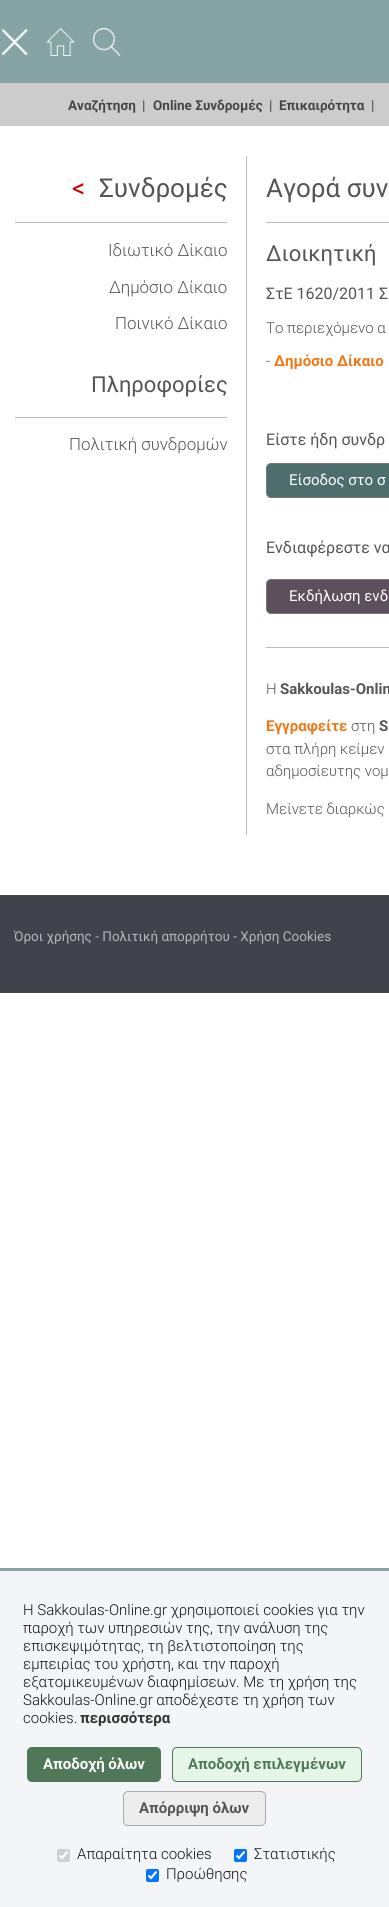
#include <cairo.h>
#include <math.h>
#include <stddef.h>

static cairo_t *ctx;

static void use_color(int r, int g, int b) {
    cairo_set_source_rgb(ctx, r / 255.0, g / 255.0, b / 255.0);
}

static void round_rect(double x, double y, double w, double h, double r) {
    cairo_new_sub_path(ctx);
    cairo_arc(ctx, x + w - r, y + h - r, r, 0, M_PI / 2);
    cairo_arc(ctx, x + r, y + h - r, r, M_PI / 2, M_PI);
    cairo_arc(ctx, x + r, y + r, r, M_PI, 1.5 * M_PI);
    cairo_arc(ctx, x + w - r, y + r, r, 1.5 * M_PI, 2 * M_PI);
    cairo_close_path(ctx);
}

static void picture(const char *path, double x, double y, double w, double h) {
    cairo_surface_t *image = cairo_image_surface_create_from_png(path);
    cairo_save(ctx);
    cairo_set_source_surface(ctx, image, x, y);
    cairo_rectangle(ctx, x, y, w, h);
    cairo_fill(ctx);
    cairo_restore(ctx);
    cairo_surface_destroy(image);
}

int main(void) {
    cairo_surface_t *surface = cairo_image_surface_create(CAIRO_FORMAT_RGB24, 389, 1907);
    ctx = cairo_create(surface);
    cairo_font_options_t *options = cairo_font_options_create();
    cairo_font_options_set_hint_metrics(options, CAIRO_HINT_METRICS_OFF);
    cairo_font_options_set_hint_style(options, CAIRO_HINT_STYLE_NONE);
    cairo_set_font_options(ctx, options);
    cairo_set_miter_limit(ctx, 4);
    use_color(255, 255, 255);
    cairo_paint(ctx);
    use_color(133, 164, 163);
    cairo_rectangle(ctx, 0, 0, 389, 83);
    cairo_fill(ctx);
    picture("img1.png", 1, 29, 27, 27);
    picture("img2.png", 46, 28, 29, 28);
    picture("img3.png", 93, 28, 28, 28);
    use_color(204, 204, 204);
    cairo_rectangle(ctx, 0, 83, 389, 43);
    cairo_fill(ctx);
    cairo_select_font_face(ctx, "Roboto", CAIRO_FONT_SLANT_NORMAL, CAIRO_FONT_WEIGHT_BOLD);
    cairo_set_font_size(ctx, 13.5);
    use_color(69, 69, 69);
    cairo_move_to(ctx, 68, 110);
    cairo_show_text(ctx, "Αναζήτηση");
    use_color(85, 85, 85);
    cairo_move_to(ctx, 142, 110);
    cairo_show_text(ctx, "|");
    use_color(69, 69, 69);
    cairo_move_to(ctx, 153, 110);
    cairo_show_text(ctx, "Online Συνδρομές");
    use_color(85, 85, 85);
    cairo_move_to(ctx, 269, 110);
    cairo_show_text(ctx, "|");
    use_color(69, 69, 69);
    cairo_move_to(ctx, 279, 110);
    cairo_show_text(ctx, "Επικαιρότητα");
    use_color(85, 85, 85);
    cairo_move_to(ctx, 371, 110);
    cairo_show_text(ctx, "|");
    use_color(189, 189, 189);
    cairo_rectangle(ctx, 246, 156, 1, 679);
    cairo_fill(ctx);
    cairo_select_font_face(ctx, "Roboto", CAIRO_FONT_SLANT_NORMAL, CAIRO_FONT_WEIGHT_NORMAL);
    cairo_set_font_size(ctx, 26);
    use_color(199, 0, 0);
    cairo_move_to(ctx, 72, 197);
    cairo_show_text(ctx, "<");
    use_color(85, 85, 85);
    cairo_move_to(ctx, 99, 197);
    cairo_show_text(ctx, "Συνδρομές");
    use_color(192, 187, 180);
    cairo_rectangle(ctx, 15, 222, 212, 1);
    cairo_fill(ctx);
    cairo_select_font_face(ctx, "Roboto Light", CAIRO_FONT_SLANT_NORMAL, CAIRO_FONT_WEIGHT_NORMAL);
    cairo_set_font_size(ctx, 16.9);
    use_color(85, 85, 85);
    cairo_move_to(ctx, 108, 256);
    cairo_show_text(ctx, "Ιδιωτικό Δίκαιο");
    cairo_move_to(ctx, 109, 293);
    cairo_show_text(ctx, "Δημόσιο Δίκαιο");
    cairo_move_to(ctx, 115, 329);
    cairo_show_text(ctx, "Ποινικό Δίκαιο");
    cairo_select_font_face(ctx, "Roboto", CAIRO_FONT_SLANT_NORMAL, CAIRO_FONT_WEIGHT_NORMAL);
    cairo_set_font_size(ctx, 22);
    cairo_move_to(ctx, 91, 392);
    cairo_show_text(ctx, "Πληροφορίες");
    use_color(192, 187, 180);
    cairo_rectangle(ctx, 15, 417, 212, 1);
    cairo_fill(ctx);
    cairo_select_font_face(ctx, "Roboto Light", CAIRO_FONT_SLANT_NORMAL, CAIRO_FONT_WEIGHT_NORMAL);
    cairo_set_font_size(ctx, 16.9);
    use_color(85, 85, 85);
    cairo_move_to(ctx, 69, 450);
    cairo_show_text(ctx, "Πολιτική συνδρομών");
    cairo_select_font_face(ctx, "Roboto", CAIRO_FONT_SLANT_NORMAL, CAIRO_FONT_WEIGHT_NORMAL);
    cairo_set_font_size(ctx, 26);
    cairo_move_to(ctx, 266, 197);
    cairo_show_text(ctx, "Αγορά συν");
    use_color(192, 187, 180);
    cairo_rectangle(ctx, 266, 222, 123, 1);
    cairo_fill(ctx);
    cairo_set_font_size(ctx, 22);
    use_color(85, 85, 85);
    cairo_move_to(ctx, 266, 261);
    cairo_show_text(ctx, "Διοικητική");
    cairo_set_font_size(ctx, 16);
    cairo_move_to(ctx, 266, 299);
    cairo_show_text(ctx, "ΣτΕ 1620/2011 Σ");
    cairo_select_font_face(ctx, "Roboto Light", CAIRO_FONT_SLANT_NORMAL, CAIRO_FONT_WEIGHT_NORMAL);
    cairo_set_font_size(ctx, 15);
    cairo_move_to(ctx, 266, 333);
    cairo_show_text(ctx, "Το περιεχόμενο α");
    cairo_move_to(ctx, 266, 366);
    cairo_show_text(ctx, "-");
    cairo_select_font_face(ctx, "Roboto", CAIRO_FONT_SLANT_NORMAL, CAIRO_FONT_WEIGHT_BOLD);
    use_color(241, 120, 23);
    cairo_move_to(ctx, 274, 366);
    cairo_show_text(ctx, "Δημόσιο Δίκαιο");
    cairo_select_font_face(ctx, "Roboto", CAIRO_FONT_SLANT_NORMAL, CAIRO_FONT_WEIGHT_NORMAL);
    cairo_set_font_size(ctx, 16);
    use_color(85, 85, 85);
    cairo_move_to(ctx, 266, 445);
    cairo_show_text(ctx, "Είστε ήδη συνδρ");
    use_color(77, 110, 109);
    round_rect(266.5, 463.5, 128, 34, 4.5);
    cairo_fill_preserve(ctx);
    use_color(119, 119, 119);
    cairo_set_line_width(ctx, 1);
    cairo_stroke(ctx);
    cairo_set_font_size(ctx, 15);
    use_color(255, 255, 255);
    cairo_move_to(ctx, 289, 485);
    cairo_show_text(ctx, "Είσοδος στο σ");
    cairo_set_font_size(ctx, 16);
    use_color(85, 85, 85);
    cairo_move_to(ctx, 266, 553);
    cairo_show_text(ctx, "Ενδιαφέρεστε να");
    use_color(92, 80, 92);
    round_rect(266.5, 579.5, 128, 34, 4.5);
    cairo_fill_preserve(ctx);
    use_color(119, 119, 119);
    cairo_stroke(ctx);
    cairo_set_font_size(ctx, 15);
    use_color(255, 255, 255);
    cairo_move_to(ctx, 289, 601);
    cairo_show_text(ctx, "Εκδήλωση ενδ");
    use_color(192, 187, 180);
    cairo_rectangle(ctx, 266, 647, 123, 1);
    cairo_fill(ctx);
    cairo_select_font_face(ctx, "Roboto Light", CAIRO_FONT_SLANT_NORMAL, CAIRO_FONT_WEIGHT_NORMAL);
    use_color(85, 85, 85);
    cairo_move_to(ctx, 266, 694);
    cairo_show_text(ctx, "Η");
    cairo_select_font_face(ctx, "Roboto", CAIRO_FONT_SLANT_NORMAL, CAIRO_FONT_WEIGHT_BOLD);
    cairo_move_to(ctx, 280, 694);
    cairo_show_text(ctx, "Sakkoulas-Onlin");
    use_color(241, 120, 23);
    cairo_move_to(ctx, 266, 731);
    cairo_show_text(ctx, "Εγγραφείτε");
    cairo_select_font_face(ctx, "Roboto Light", CAIRO_FONT_SLANT_NORMAL, CAIRO_FONT_WEIGHT_NORMAL);
    use_color(85, 85, 85);
    cairo_move_to(ctx, 351, 731);
    cairo_show_text(ctx, "στη");
    cairo_select_font_face(ctx, "Roboto", CAIRO_FONT_SLANT_NORMAL, CAIRO_FONT_WEIGHT_BOLD);
    cairo_move_to(ctx, 379, 731);
    cairo_show_text(ctx, "S");
    cairo_select_font_face(ctx, "Roboto Light", CAIRO_FONT_SLANT_NORMAL, CAIRO_FONT_WEIGHT_NORMAL);
    cairo_move_to(ctx, 266, 754);
    cairo_show_text(ctx, "στα πλήρη κείμεν");
    cairo_move_to(ctx, 266, 776);
    cairo_show_text(ctx, "αδημοσίευτης νομ");
    cairo_move_to(ctx, 266, 814);
    cairo_show_text(ctx, "Μείνετε διαρκώς");
    use_color(65, 67, 76);
    cairo_rectangle(ctx, 0, 895, 389, 98);
    cairo_fill(ctx);
    cairo_select_font_face(ctx, "Roboto", CAIRO_FONT_SLANT_NORMAL, CAIRO_FONT_WEIGHT_NORMAL);
    cairo_set_font_size(ctx, 13.5);
    use_color(184, 184, 187);
    cairo_move_to(ctx, 14, 941);
    cairo_show_text(ctx, "Όροι χρήσης - Πολιτική απορρήτου - Χρήση Cookies");
    use_color(244, 245, 249);
    cairo_rectangle(ctx, 0, 1571, 389, 336);
    cairo_fill(ctx);
    use_color(133, 164, 163);
    cairo_rectangle(ctx, 0, 1568, 389, 3);
    cairo_fill(ctx);
    cairo_select_font_face(ctx, "Roboto Light", CAIRO_FONT_SLANT_NORMAL, CAIRO_FONT_WEIGHT_NORMAL);
    cairo_set_font_size(ctx, 15);
    use_color(17, 17, 17);
    cairo_move_to(ctx, 23, 1615);
    cairo_show_text(ctx, "Η Sakkoulas-Online.gr χρησιμοποιεί cookies για την");
    cairo_move_to(ctx, 23, 1633);
    cairo_show_text(ctx, "παροχή των υπηρεσιών της, την ανάλυση της");
    cairo_move_to(ctx, 23, 1651);
    cairo_show_text(ctx, "επισκεψιμότητας, τη βελτιστοποίηση της");
    cairo_move_to(ctx, 23, 1669);
    cairo_show_text(ctx, "εμπειρίας του χρήστη, και την παροχή");
    cairo_move_to(ctx, 23, 1687);
    cairo_show_text(ctx, "εξατομικευμένων διαφημίσεων. Με τη χρήση της");
    cairo_move_to(ctx, 23, 1705);
    cairo_show_text(ctx, "Sakkoulas-Online.gr αποδέχεστε τη χρήση των");
    cairo_move_to(ctx, 23, 1723);
    cairo_show_text(ctx, "cookies.");
    cairo_select_font_face(ctx, "Roboto", CAIRO_FONT_SLANT_NORMAL, CAIRO_FONT_WEIGHT_BOLD);
    use_color(51, 51, 51);
    cairo_move_to(ctx, 80, 1723);
    cairo_show_text(ctx, "περισσότερα");
    use_color(80, 119, 88);
    round_rect(27.5, 1747.5, 133, 34, 4.5);
    cairo_fill_preserve(ctx);
    cairo_stroke(ctx);
    use_color(255, 255, 255);
    cairo_move_to(ctx, 43, 1769);
    cairo_show_text(ctx, "Αποδοχή όλων");
    use_color(229, 246, 232);
    round_rect(172.5, 1747.5, 189, 34, 4.5);
    cairo_fill_preserve(ctx);
    use_color(80, 119, 88);
    cairo_stroke(ctx);
    cairo_move_to(ctx, 188, 1769);
    cairo_show_text(ctx, "Αποδοχή επιλεγμένων");
    use_color(237, 237, 237);
    round_rect(123.5, 1791.5, 142, 34, 4.5);
    cairo_fill_preserve(ctx);
    use_color(170, 170, 170);
    cairo_stroke(ctx);
    use_color(85, 85, 85);
    cairo_move_to(ctx, 139, 1813);
    cairo_show_text(ctx, "Απόρριψη όλων");
    use_color(206, 207, 210);
    round_rect(57, 1849, 13, 13, 2);
    cairo_fill(ctx);
    cairo_new_path(ctx);
    cairo_move_to(ctx, 59.5, 1855.5);
    cairo_line_to(ctx, 62, 1858);
    cairo_line_to(ctx, 67.5, 1851.5);
    use_color(255, 255, 255);
    cairo_set_line_width(ctx, 2.1);
    cairo_stroke(ctx);
    cairo_select_font_face(ctx, "Roboto Light", CAIRO_FONT_SLANT_NORMAL, CAIRO_FONT_WEIGHT_NORMAL);
    use_color(17, 17, 17);
    cairo_move_to(ctx, 77, 1859);
    cairo_show_text(ctx, "Απαραίτητα cookies");
    use_color(0, 117, 255);
    round_rect(234, 1849, 13, 13, 2);
    cairo_fill(ctx);
    cairo_new_path(ctx);
    cairo_move_to(ctx, 236.5, 1855.5);
    cairo_line_to(ctx, 239, 1858);
    cairo_line_to(ctx, 244.5, 1851.5);
    use_color(255, 255, 255);
    cairo_stroke(ctx);
    use_color(17, 17, 17);
    cairo_move_to(ctx, 254, 1859);
    cairo_show_text(ctx, "Στατιστικής");
    use_color(0, 117, 255);
    round_rect(146, 1869, 13, 13, 2);
    cairo_fill(ctx);
    cairo_new_path(ctx);
    cairo_move_to(ctx, 148.5, 1875.5);
    cairo_line_to(ctx, 151, 1878);
    cairo_line_to(ctx, 156.5, 1871.5);
    use_color(255, 255, 255);
    cairo_stroke(ctx);
    use_color(17, 17, 17);
    cairo_move_to(ctx, 166, 1879);
    cairo_show_text(ctx, "Προώθησης");
    cairo_surface_write_to_png(surface, "result.png");
    cairo_font_options_destroy(options);
    cairo_destroy(ctx);
    cairo_surface_destroy(surface);
    return 0;
}
